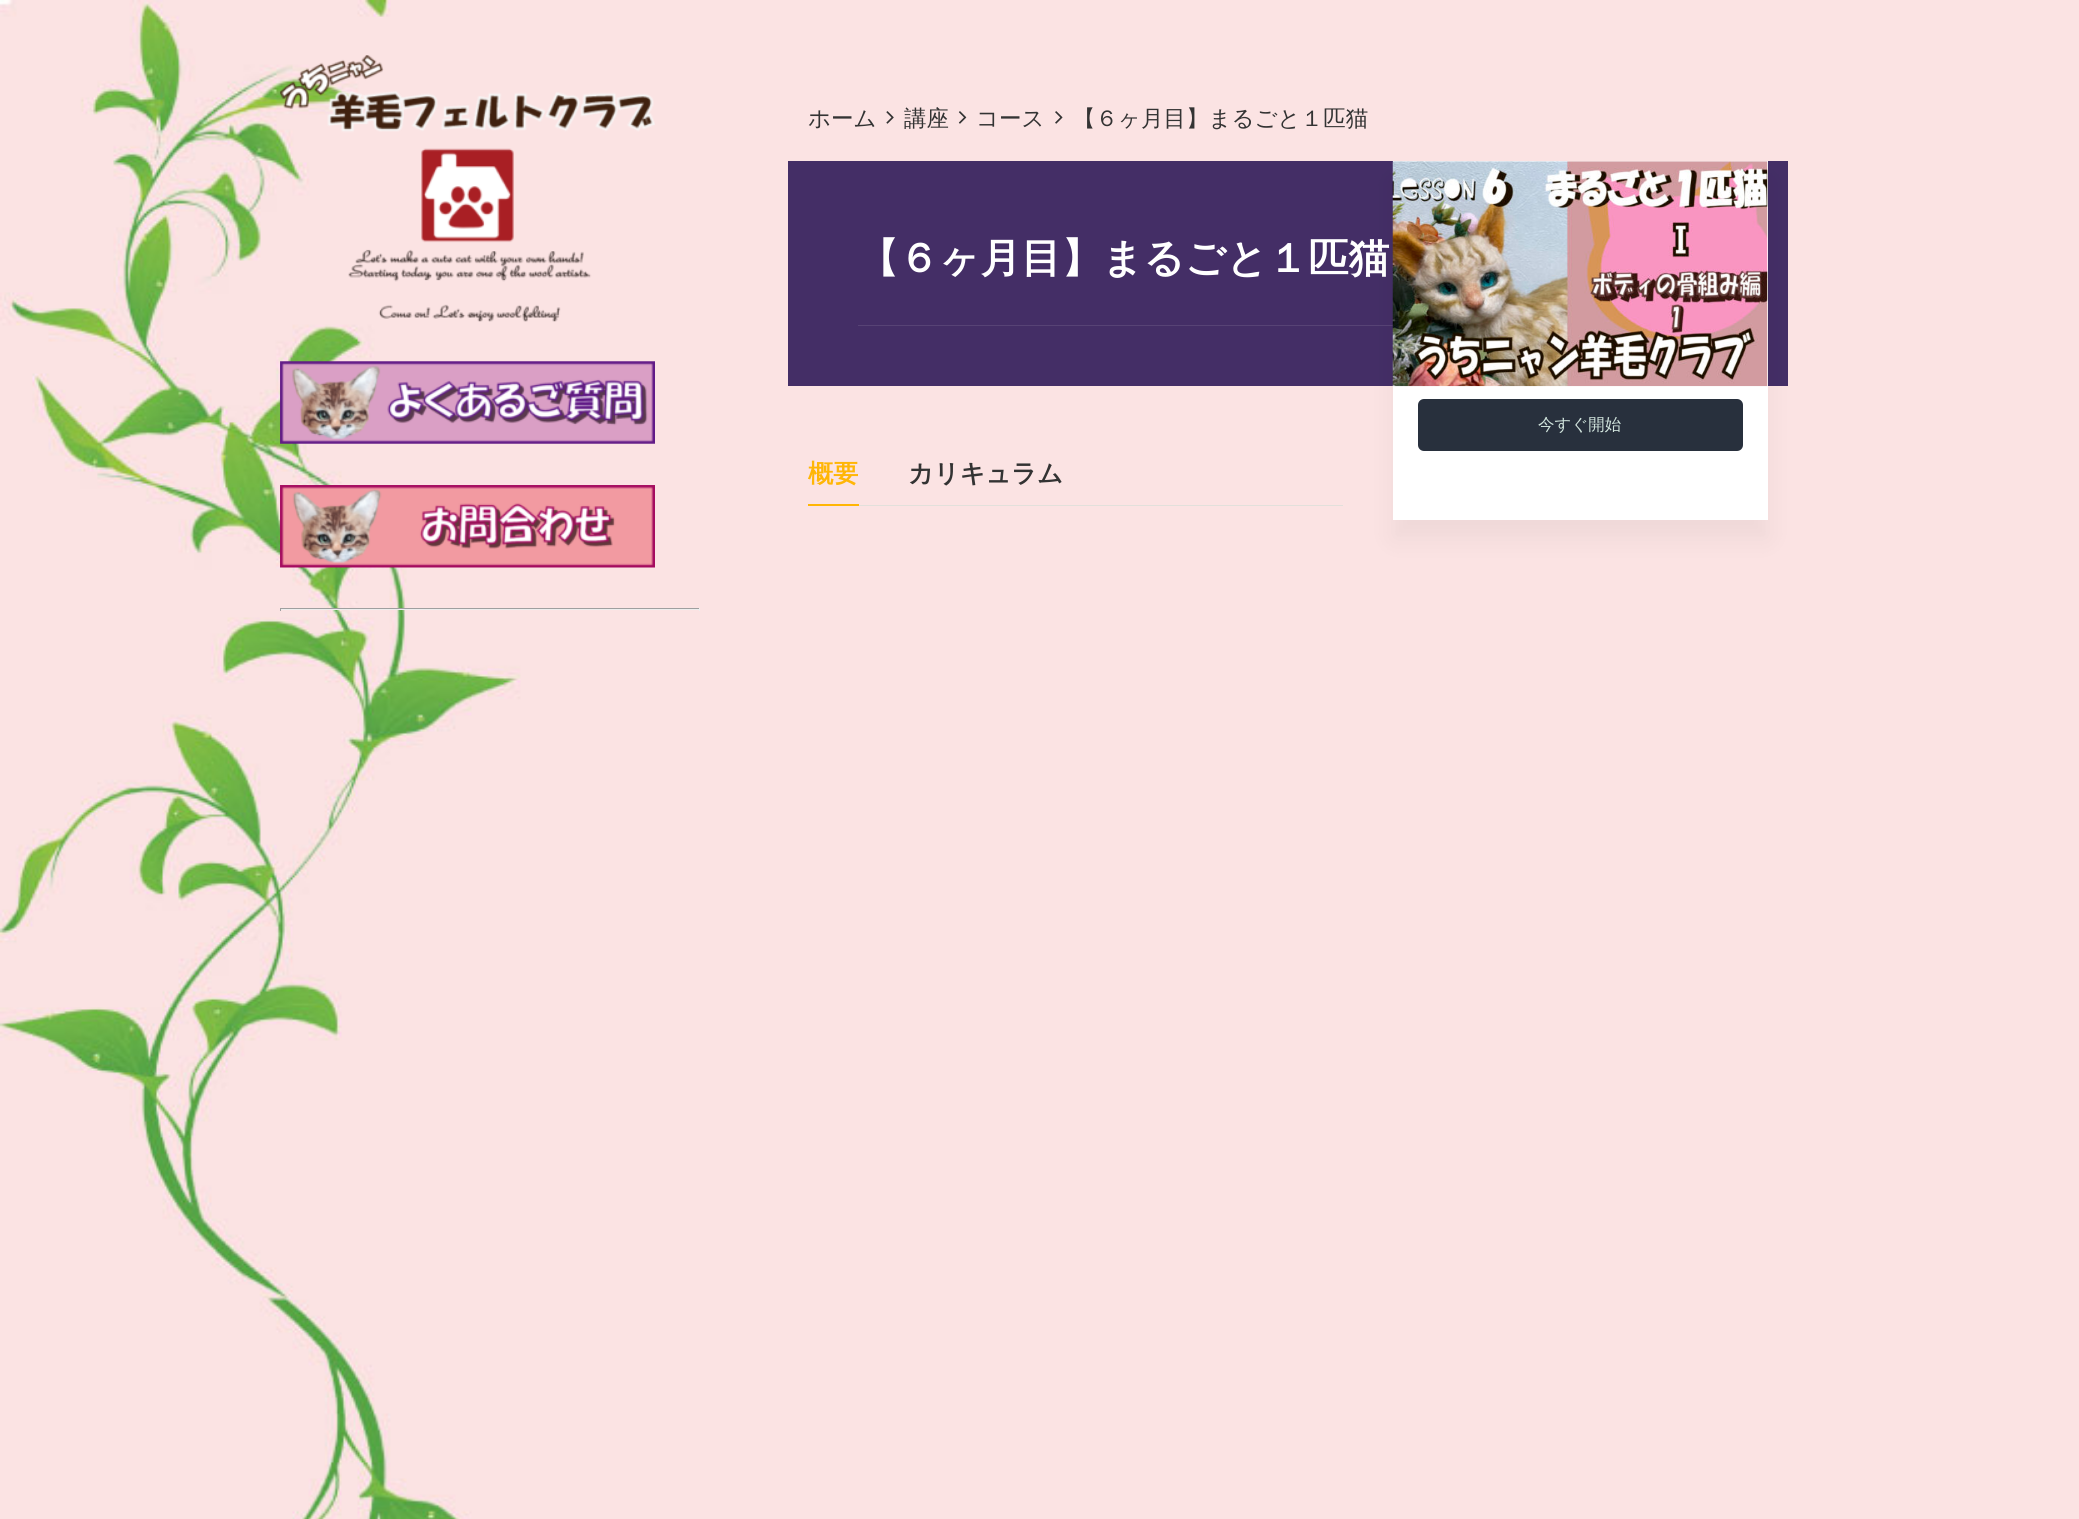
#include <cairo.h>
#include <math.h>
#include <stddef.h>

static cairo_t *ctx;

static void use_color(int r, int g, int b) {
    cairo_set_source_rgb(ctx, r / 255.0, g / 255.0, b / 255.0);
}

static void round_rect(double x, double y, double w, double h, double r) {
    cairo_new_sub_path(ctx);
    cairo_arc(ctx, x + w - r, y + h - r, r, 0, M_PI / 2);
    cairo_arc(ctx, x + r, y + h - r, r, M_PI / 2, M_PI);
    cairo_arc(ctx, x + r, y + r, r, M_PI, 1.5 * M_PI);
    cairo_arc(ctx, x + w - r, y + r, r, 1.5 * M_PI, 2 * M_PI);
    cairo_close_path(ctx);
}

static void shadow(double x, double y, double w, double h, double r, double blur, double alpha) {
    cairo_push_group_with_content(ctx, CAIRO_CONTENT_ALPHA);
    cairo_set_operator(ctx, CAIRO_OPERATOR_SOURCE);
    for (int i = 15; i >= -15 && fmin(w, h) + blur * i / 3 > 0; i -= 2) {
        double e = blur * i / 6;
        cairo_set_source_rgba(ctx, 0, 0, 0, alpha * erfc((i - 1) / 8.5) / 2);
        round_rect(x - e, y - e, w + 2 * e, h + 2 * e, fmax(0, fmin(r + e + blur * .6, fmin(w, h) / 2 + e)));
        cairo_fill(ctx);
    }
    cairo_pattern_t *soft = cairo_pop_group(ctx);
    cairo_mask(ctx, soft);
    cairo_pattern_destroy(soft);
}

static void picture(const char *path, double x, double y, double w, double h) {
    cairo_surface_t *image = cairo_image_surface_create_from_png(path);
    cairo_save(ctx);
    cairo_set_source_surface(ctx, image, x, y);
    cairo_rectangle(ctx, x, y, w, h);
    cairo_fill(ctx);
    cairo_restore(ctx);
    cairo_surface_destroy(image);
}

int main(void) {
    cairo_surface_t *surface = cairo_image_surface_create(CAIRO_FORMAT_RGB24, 2079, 1519);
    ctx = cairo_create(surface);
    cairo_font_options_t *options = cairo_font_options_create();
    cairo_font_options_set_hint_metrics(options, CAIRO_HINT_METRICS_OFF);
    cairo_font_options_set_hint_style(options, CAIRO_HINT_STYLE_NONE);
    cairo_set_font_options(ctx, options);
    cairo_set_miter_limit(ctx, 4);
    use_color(255, 255, 255);
    cairo_paint(ctx);
    picture("img1.png", 0, 0, 2079, 1519);
    picture("img2.png", 280, 55, 375, 267);
    picture("img3.png", 280, 361, 375, 83);
    picture("img4.png", 280, 485, 375, 83);
    use_color(159, 159, 159);
    cairo_rectangle(ctx, 280, 608, 420, 1);
    cairo_fill(ctx);
    use_color(238, 238, 238);
    cairo_rectangle(ctx, 699, 608, 1, 3);
    cairo_fill(ctx);
    cairo_rectangle(ctx, 280, 609, 420, 1);
    cairo_fill(ctx);
    use_color(159, 159, 159);
    cairo_rectangle(ctx, 280, 608, 1, 3);
    cairo_fill(ctx);
    cairo_select_font_face(ctx, "WenQuanYi Zen Hei Medium", CAIRO_FONT_SLANT_NORMAL, CAIRO_FONT_WEIGHT_NORMAL);
    cairo_set_font_size(ctx, 22.5);
    use_color(51, 51, 51);
    cairo_move_to(ctx, 808, 126);
    cairo_show_text(ctx, "ホーム");
    picture("img5.png", 886, 111, 8, 13);
    cairo_move_to(ctx, 904, 126);
    cairo_show_text(ctx, "講座");
    picture("img6.png", 958, 111, 9, 13);
    cairo_move_to(ctx, 976, 126);
    cairo_show_text(ctx, "コース");
    picture("img7.png", 1055, 111, 8, 13);
    cairo_move_to(ctx, 1073, 126);
    cairo_show_text(ctx, "【６ヶ月目】まるごと１匹猫");
    use_color(68, 46, 102);
    cairo_rectangle(ctx, 788, 161, 1000, 225);
    cairo_fill(ctx);
    use_color(87, 67, 117);
    cairo_rectangle(ctx, 858, 325, 535, 1);
    cairo_fill(ctx);
    cairo_select_font_face(ctx, "WenQuanYi Zen Hei", CAIRO_FONT_SLANT_NORMAL, CAIRO_FONT_WEIGHT_BOLD);
    cairo_set_font_size(ctx, 40.5);
    use_color(255, 255, 255);
    cairo_move_to(ctx, 858, 272);
    cairo_show_text(ctx, "【６ヶ月目】まるごと１匹猫");
    use_color(0, 0, 0);
    shadow(1393, 180, 375, 359, 0, 12.5, 0.05);
    use_color(255, 255, 255);
    cairo_rectangle(ctx, 1393, 161, 375, 359);
    cairo_fill(ctx);
    picture("img8.png", 1392, 161, 376, 226);
    use_color(40, 48, 61);
    round_rect(1418, 399, 325, 52, 6);
    cairo_fill(ctx);
    cairo_select_font_face(ctx, "WenQuanYi Zen Hei Medium", CAIRO_FONT_SLANT_NORMAL, CAIRO_FONT_WEIGHT_NORMAL);
    cairo_set_font_size(ctx, 16.5);
    use_color(209, 228, 221);
    cairo_move_to(ctx, 1538, 430);
    cairo_show_text(ctx, "今すぐ開始");
    use_color(226, 224, 219);
    cairo_rectangle(ctx, 859, 505, 484, 1);
    cairo_fill(ctx);
    cairo_select_font_face(ctx, "WenQuanYi Zen Hei", CAIRO_FONT_SLANT_NORMAL, CAIRO_FONT_WEIGHT_BOLD);
    cairo_set_font_size(ctx, 25.25);
    use_color(255, 182, 6);
    cairo_move_to(ctx, 808, 482);
    cairo_show_text(ctx, "概要");
    cairo_rectangle(ctx, 808, 504, 51, 2);
    cairo_fill(ctx);
    use_color(51, 51, 51);
    cairo_move_to(ctx, 908, 482);
    cairo_show_text(ctx, "カリキュラム");
    cairo_surface_write_to_png(surface, "result.png");
    cairo_font_options_destroy(options);
    cairo_destroy(ctx);
    cairo_surface_destroy(surface);
    return 0;
}
